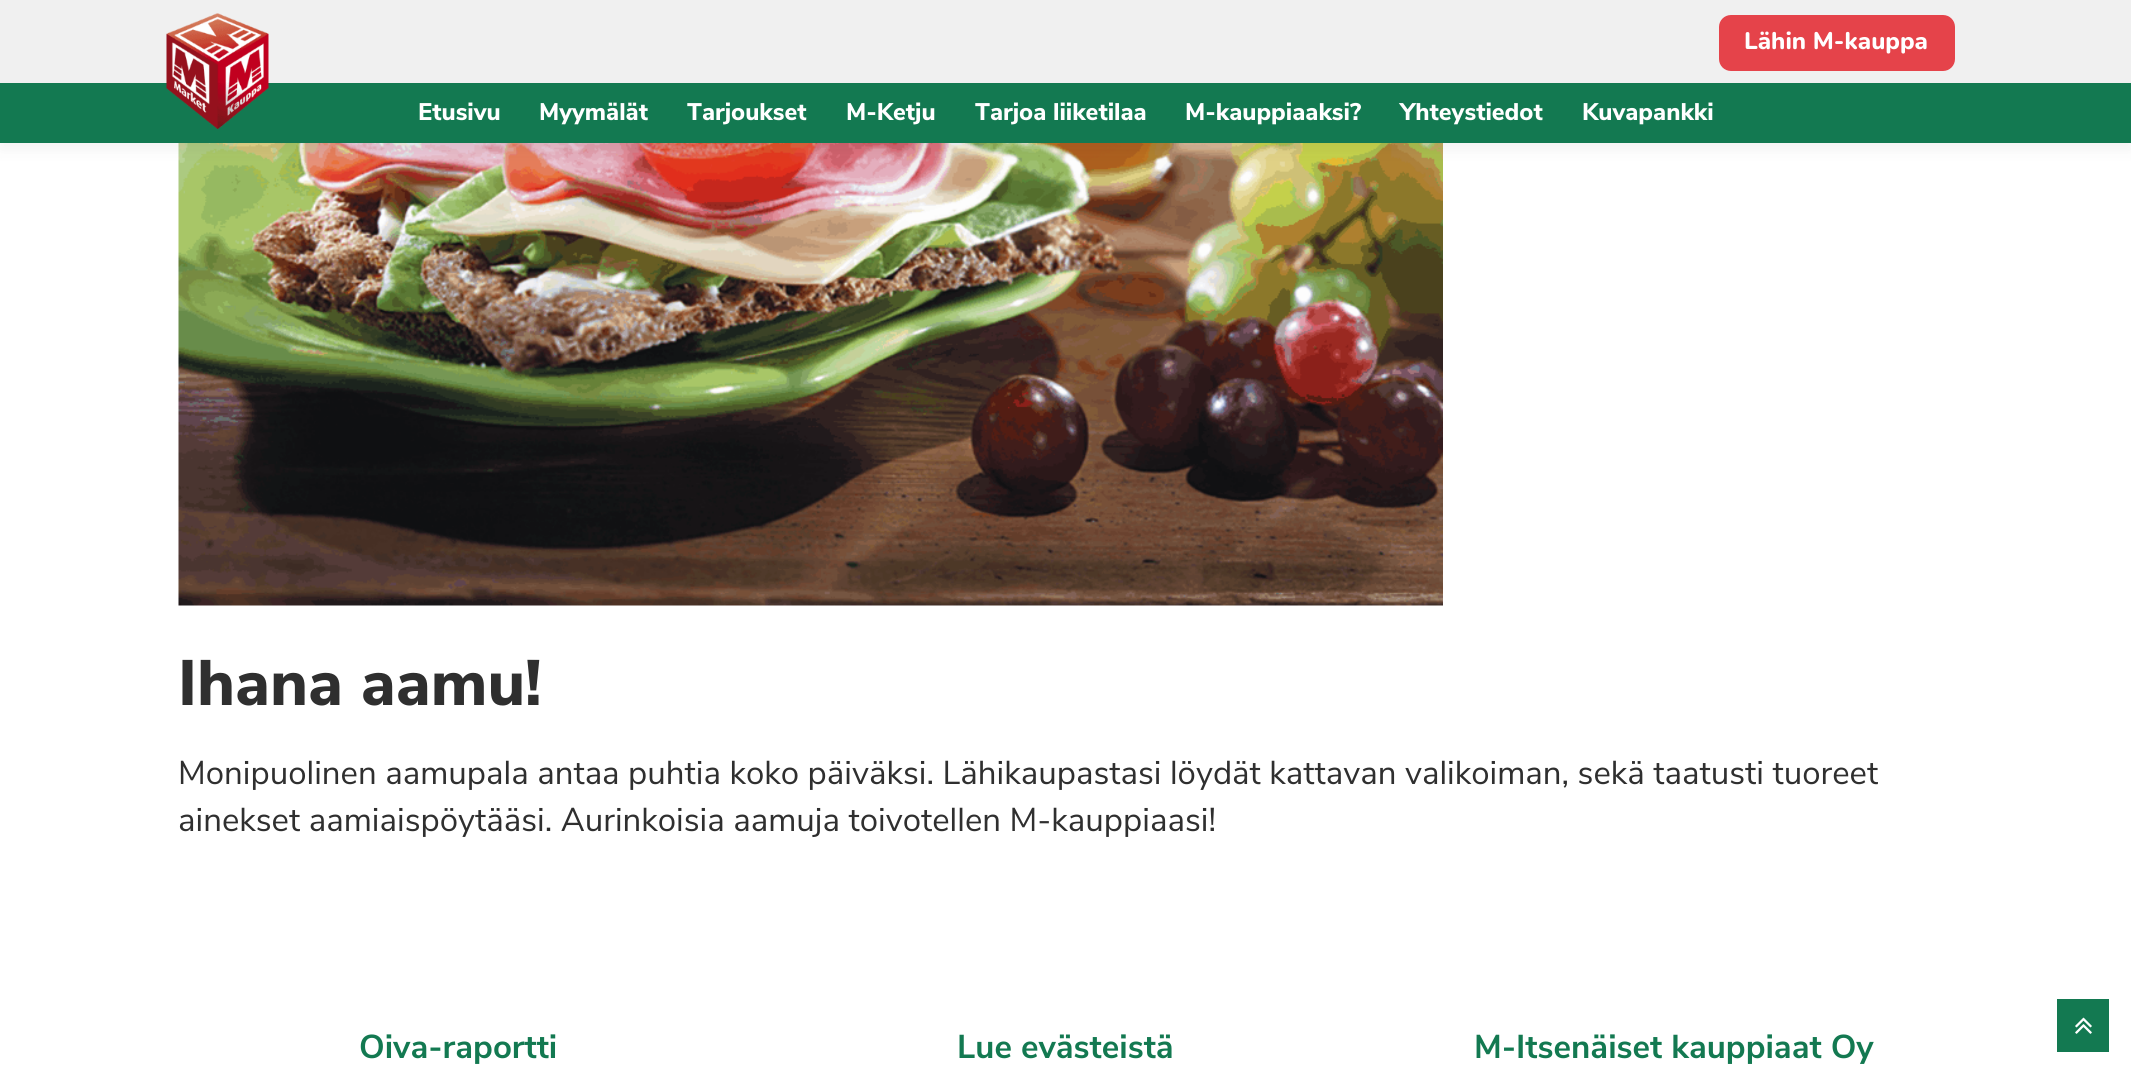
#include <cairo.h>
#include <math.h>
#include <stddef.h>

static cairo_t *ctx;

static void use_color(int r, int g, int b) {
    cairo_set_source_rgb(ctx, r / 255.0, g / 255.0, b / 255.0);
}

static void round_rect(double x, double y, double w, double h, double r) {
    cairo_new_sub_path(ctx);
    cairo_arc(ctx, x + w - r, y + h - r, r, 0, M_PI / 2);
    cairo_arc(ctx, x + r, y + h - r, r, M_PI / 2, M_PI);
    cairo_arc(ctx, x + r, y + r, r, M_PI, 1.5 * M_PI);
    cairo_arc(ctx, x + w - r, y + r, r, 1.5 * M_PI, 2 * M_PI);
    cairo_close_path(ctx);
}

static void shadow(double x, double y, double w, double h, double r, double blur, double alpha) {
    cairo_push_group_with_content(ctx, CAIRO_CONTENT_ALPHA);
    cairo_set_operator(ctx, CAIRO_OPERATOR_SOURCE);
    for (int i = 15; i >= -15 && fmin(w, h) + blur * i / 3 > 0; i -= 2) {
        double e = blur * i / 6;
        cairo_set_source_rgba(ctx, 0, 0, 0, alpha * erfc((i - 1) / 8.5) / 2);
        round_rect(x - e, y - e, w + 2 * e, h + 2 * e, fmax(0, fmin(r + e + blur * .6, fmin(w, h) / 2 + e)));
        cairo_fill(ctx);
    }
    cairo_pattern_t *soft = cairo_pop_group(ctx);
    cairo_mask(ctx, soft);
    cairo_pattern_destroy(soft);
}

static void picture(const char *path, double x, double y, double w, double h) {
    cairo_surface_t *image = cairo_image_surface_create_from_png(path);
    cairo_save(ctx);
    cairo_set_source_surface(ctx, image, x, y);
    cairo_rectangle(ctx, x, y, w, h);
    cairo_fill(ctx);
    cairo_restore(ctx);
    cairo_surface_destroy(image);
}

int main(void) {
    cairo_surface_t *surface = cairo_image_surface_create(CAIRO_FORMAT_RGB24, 2131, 1074);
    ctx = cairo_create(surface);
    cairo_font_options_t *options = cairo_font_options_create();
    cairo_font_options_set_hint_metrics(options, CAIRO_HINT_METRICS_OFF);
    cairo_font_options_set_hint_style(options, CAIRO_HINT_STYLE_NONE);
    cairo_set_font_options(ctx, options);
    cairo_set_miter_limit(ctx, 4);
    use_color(255, 255, 255);
    cairo_paint(ctx);
    picture("img2.png", 178, 143, 1265, 463);
    use_color(50, 50, 50);
    shadow(0, 8, 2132, 142, 0, 7.5, 0.06);
    use_color(240, 240, 240);
    cairo_rectangle(ctx, 0, 0, 2131, 83);
    cairo_fill(ctx);
    use_color(19, 121, 81);
    cairo_rectangle(ctx, 0, 83, 2131, 60);
    cairo_fill(ctx);
    picture("img1.png", 166, 13, 103, 116);
    use_color(229, 67, 74);
    round_rect(1721.5, 17.5, 231, 51, 9.5);
    cairo_fill_preserve(ctx);
    cairo_set_line_width(ctx, 5);
    cairo_stroke(ctx);
    cairo_select_font_face(ctx, "Nunito ExtraBold", CAIRO_FONT_SLANT_NORMAL, CAIRO_FONT_WEIGHT_NORMAL);
    cairo_set_font_size(ctx, 24);
    use_color(255, 255, 255);
    cairo_move_to(ctx, 1744, 49);
    cairo_show_text(ctx, "Lähin M-kauppa");
    cairo_select_font_face(ctx, "Nunito Sans ExtraBold", CAIRO_FONT_SLANT_NORMAL, CAIRO_FONT_WEIGHT_NORMAL);
    cairo_move_to(ctx, 418, 120);
    cairo_show_text(ctx, "Etusivu");
    cairo_move_to(ctx, 539, 120);
    cairo_show_text(ctx, "Myymälät");
    cairo_move_to(ctx, 687, 120);
    cairo_show_text(ctx, "Tarjoukset");
    cairo_move_to(ctx, 846, 120);
    cairo_show_text(ctx, "M-Ketju");
    cairo_move_to(ctx, 975, 120);
    cairo_show_text(ctx, "Tarjoa liiketilaa");
    cairo_move_to(ctx, 1185, 120);
    cairo_show_text(ctx, "M-kauppiaaksi?");
    cairo_move_to(ctx, 1400, 120);
    cairo_show_text(ctx, "Yhteystiedot");
    cairo_move_to(ctx, 1582, 120);
    cairo_show_text(ctx, "Kuvapankki");
    cairo_set_font_size(ctx, 64);
    use_color(47, 47, 47);
    cairo_move_to(ctx, 178, 705);
    cairo_show_text(ctx, "Ihana aamu!");
    cairo_select_font_face(ctx, "Nunito Sans", CAIRO_FONT_SLANT_NORMAL, CAIRO_FONT_WEIGHT_NORMAL);
    cairo_set_font_size(ctx, 33);
    cairo_move_to(ctx, 178, 784);
    cairo_show_text(ctx, "Monipuolinen aamupala antaa puhtia koko päiväksi. Lähikaupastasi löydät kattavan valikoiman, sekä taatusti tuoreet");
    cairo_move_to(ctx, 178, 831);
    cairo_show_text(ctx, "ainekset aamiaispöytääsi. Aurinkoisia aamuja toivotellen M-kauppiaasi!");
    cairo_select_font_face(ctx, "Nunito Sans", CAIRO_FONT_SLANT_NORMAL, CAIRO_FONT_WEIGHT_BOLD);
    use_color(19, 121, 81);
    cairo_move_to(ctx, 359, 1058);
    cairo_show_text(ctx, "Oiva-raportti");
    cairo_move_to(ctx, 957, 1058);
    cairo_show_text(ctx, "Lue evästeistä");
    cairo_move_to(ctx, 1474, 1058);
    cairo_show_text(ctx, "M-Itsenäiset kauppiaat Oy");
    cairo_rectangle(ctx, 2057, 999, 52, 53);
    cairo_fill(ctx);
    picture("img3.png", 2075, 1017, 17, 17);
    cairo_surface_write_to_png(surface, "result.png");
    cairo_font_options_destroy(options);
    cairo_destroy(ctx);
    cairo_surface_destroy(surface);
    return 0;
}
